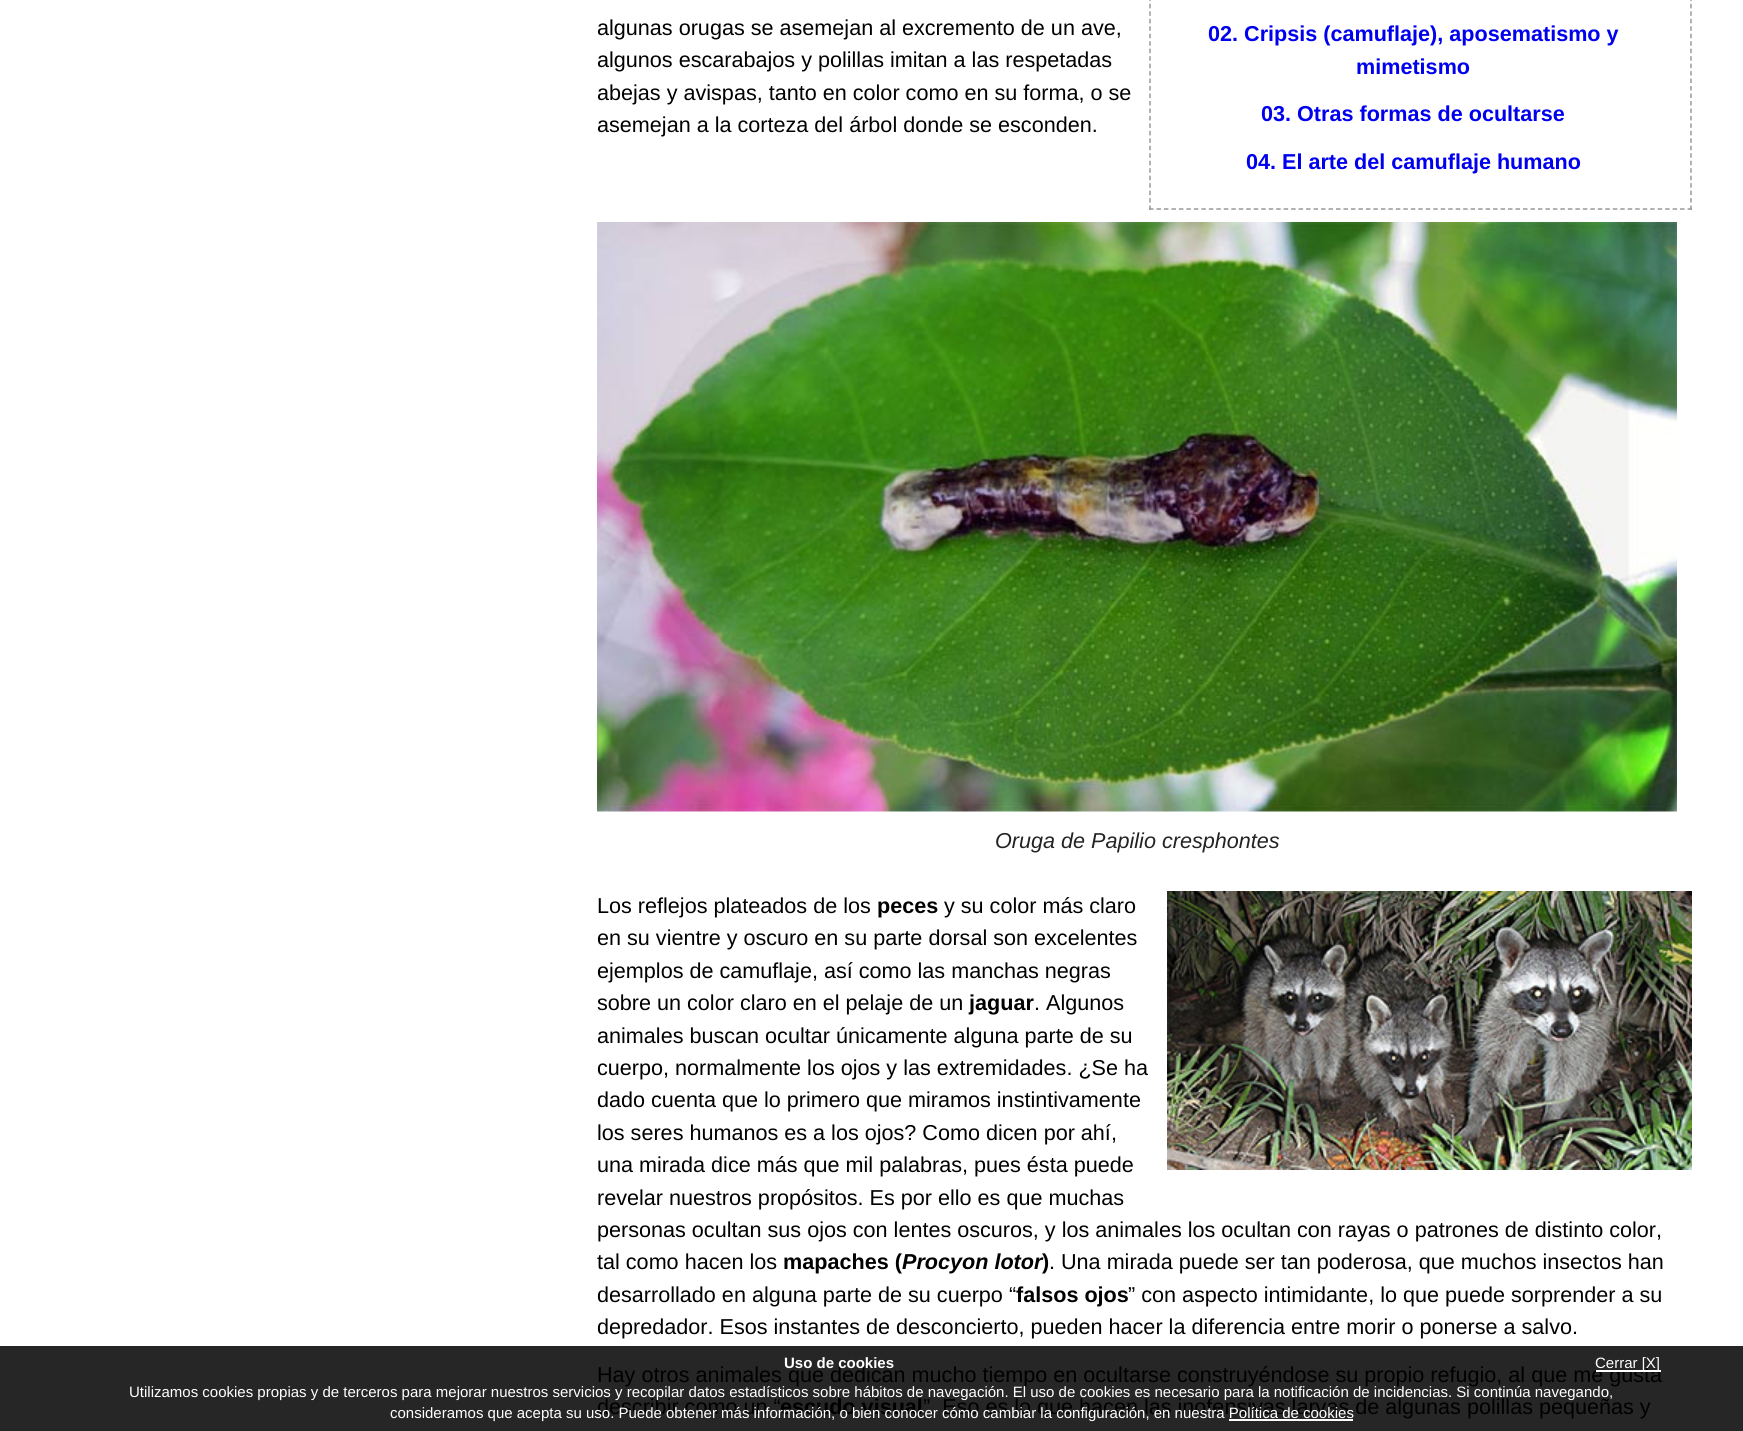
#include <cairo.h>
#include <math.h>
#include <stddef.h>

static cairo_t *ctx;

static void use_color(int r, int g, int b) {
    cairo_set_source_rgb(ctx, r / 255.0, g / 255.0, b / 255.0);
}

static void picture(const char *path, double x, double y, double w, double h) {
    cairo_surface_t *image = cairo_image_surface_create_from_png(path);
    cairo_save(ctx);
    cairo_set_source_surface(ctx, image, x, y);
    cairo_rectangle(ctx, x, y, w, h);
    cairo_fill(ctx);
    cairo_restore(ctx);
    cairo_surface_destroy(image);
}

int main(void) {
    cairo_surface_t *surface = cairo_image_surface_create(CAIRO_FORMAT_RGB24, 1743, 1431);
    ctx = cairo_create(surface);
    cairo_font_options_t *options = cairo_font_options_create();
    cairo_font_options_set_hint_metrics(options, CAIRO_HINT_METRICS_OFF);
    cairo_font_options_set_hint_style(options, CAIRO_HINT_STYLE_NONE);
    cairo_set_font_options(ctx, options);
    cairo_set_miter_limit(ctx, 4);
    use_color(255, 255, 255);
    cairo_paint(ctx);
    use_color(38, 38, 38);
    cairo_rectangle(ctx, 0, 1346, 1743, 85);
    cairo_fill(ctx);
    cairo_select_font_face(ctx, "Liberation Sans", CAIRO_FONT_SLANT_NORMAL, CAIRO_FONT_WEIGHT_NORMAL);
    cairo_set_font_size(ctx, 21.6);
    use_color(0, 0, 0);
    cairo_move_to(ctx, 597, 35);
    cairo_show_text(ctx, "algunas orugas se asemejan al excremento de un ave,");
    cairo_move_to(ctx, 597, 67);
    cairo_show_text(ctx, "algunos escarabajos y polillas imitan a las respetadas");
    cairo_move_to(ctx, 597, 100);
    cairo_show_text(ctx, "abejas y avispas, tanto en color como en su forma, o se");
    cairo_move_to(ctx, 597, 132);
    cairo_show_text(ctx, "asemejan a la corteza del árbol donde se esconden.");
    cairo_new_path(ctx);
    cairo_move_to(ctx, 1691, -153);
    cairo_line_to(ctx, 1691, 210);
    use_color(153, 153, 153);
    cairo_set_line_width(ctx, 1.5);
    cairo_set_dash(ctx, (double[]){4.5, 2.97}, 2, 0);
    cairo_stroke(ctx);
    cairo_new_path(ctx);
    cairo_move_to(ctx, 1149, 209);
    cairo_line_to(ctx, 1692, 209);
    cairo_set_dash(ctx, (double[]){4.5, 2.98}, 2, 0);
    cairo_stroke(ctx);
    cairo_new_path(ctx);
    cairo_move_to(ctx, 1150, -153);
    cairo_line_to(ctx, 1150, 210);
    cairo_set_dash(ctx, (double[]){4.5, 2.97}, 2, 0);
    cairo_stroke(ctx);
    cairo_select_font_face(ctx, "Liberation Sans", CAIRO_FONT_SLANT_NORMAL, CAIRO_FONT_WEIGHT_BOLD);
    use_color(0, 0, 238);
    cairo_move_to(ctx, 1208, 41);
    cairo_show_text(ctx, "02. Cripsis (camuflaje), aposematismo y");
    cairo_move_to(ctx, 1356, 74);
    cairo_show_text(ctx, "mimetismo");
    cairo_move_to(ctx, 1261, 121);
    cairo_show_text(ctx, "03. Otras formas de ocultarse");
    cairo_move_to(ctx, 1246, 169);
    cairo_show_text(ctx, "04. El arte del camuflaje humano");
    picture("img1.png", 597, 222, 1080, 590);
    cairo_select_font_face(ctx, "Liberation Sans", CAIRO_FONT_SLANT_ITALIC, CAIRO_FONT_WEIGHT_NORMAL);
    use_color(35, 35, 35);
    cairo_move_to(ctx, 995, 848);
    cairo_show_text(ctx, "Oruga de Papilio cresphontes");
    picture("img2.png", 1167, 891, 525, 279);
    cairo_select_font_face(ctx, "Liberation Sans", CAIRO_FONT_SLANT_NORMAL, CAIRO_FONT_WEIGHT_NORMAL);
    use_color(0, 0, 0);
    cairo_move_to(ctx, 597, 913);
    cairo_show_text(ctx, "Los reflejos plateados de los");
    cairo_select_font_face(ctx, "Liberation Sans", CAIRO_FONT_SLANT_NORMAL, CAIRO_FONT_WEIGHT_BOLD);
    cairo_move_to(ctx, 877, 913);
    cairo_show_text(ctx, "peces");
    cairo_select_font_face(ctx, "Liberation Sans", CAIRO_FONT_SLANT_NORMAL, CAIRO_FONT_WEIGHT_NORMAL);
    cairo_move_to(ctx, 944, 913);
    cairo_show_text(ctx, "y su color más claro");
    cairo_move_to(ctx, 597, 945);
    cairo_show_text(ctx, "en su vientre y oscuro en su parte dorsal son excelentes");
    cairo_move_to(ctx, 597, 978);
    cairo_show_text(ctx, "ejemplos de camuflaje, así como las manchas negras");
    cairo_move_to(ctx, 597, 1010);
    cairo_show_text(ctx, "sobre un color claro en el pelaje de un");
    cairo_select_font_face(ctx, "Liberation Sans", CAIRO_FONT_SLANT_NORMAL, CAIRO_FONT_WEIGHT_BOLD);
    cairo_move_to(ctx, 969, 1010);
    cairo_show_text(ctx, "jaguar");
    cairo_select_font_face(ctx, "Liberation Sans", CAIRO_FONT_SLANT_NORMAL, CAIRO_FONT_WEIGHT_NORMAL);
    cairo_move_to(ctx, 1034, 1010);
    cairo_show_text(ctx, ". Algunos");
    cairo_move_to(ctx, 597, 1043);
    cairo_show_text(ctx, "animales buscan ocultar únicamente alguna parte de su");
    cairo_move_to(ctx, 597, 1075);
    cairo_show_text(ctx, "cuerpo, normalmente los ojos y las extremidades. ¿Se ha");
    cairo_move_to(ctx, 597, 1107);
    cairo_show_text(ctx, "dado cuenta que lo primero que miramos instintivamente");
    cairo_move_to(ctx, 597, 1140);
    cairo_show_text(ctx, "los seres humanos es a los ojos? Como dicen por ahí,");
    cairo_move_to(ctx, 597, 1172);
    cairo_show_text(ctx, "una mirada dice más que mil palabras, pues ésta puede");
    cairo_move_to(ctx, 597, 1205);
    cairo_show_text(ctx, "revelar nuestros propósitos. Es por ello es que muchas");
    cairo_move_to(ctx, 597, 1237);
    cairo_show_text(ctx, "personas ocultan sus ojos con lentes oscuros, y los animales los ocultan con rayas o patrones de distinto color,");
    cairo_move_to(ctx, 597, 1269);
    cairo_show_text(ctx, "tal como hacen los");
    cairo_select_font_face(ctx, "Liberation Sans", CAIRO_FONT_SLANT_NORMAL, CAIRO_FONT_WEIGHT_BOLD);
    cairo_move_to(ctx, 783, 1269);
    cairo_show_text(ctx, "mapaches (");
    cairo_select_font_face(ctx, "Liberation Sans", CAIRO_FONT_SLANT_ITALIC, CAIRO_FONT_WEIGHT_BOLD);
    cairo_move_to(ctx, 902, 1269);
    cairo_show_text(ctx, "Procyon lotor");
    cairo_select_font_face(ctx, "Liberation Sans", CAIRO_FONT_SLANT_NORMAL, CAIRO_FONT_WEIGHT_BOLD);
    cairo_move_to(ctx, 1042, 1269);
    cairo_show_text(ctx, ")");
    cairo_select_font_face(ctx, "Liberation Sans", CAIRO_FONT_SLANT_NORMAL, CAIRO_FONT_WEIGHT_NORMAL);
    cairo_move_to(ctx, 1049, 1269);
    cairo_show_text(ctx, ". Una mirada puede ser tan poderosa, que muchos insectos han");
    cairo_move_to(ctx, 597, 1302);
    cairo_show_text(ctx, "desarrollado en alguna parte de su cuerpo “");
    cairo_select_font_face(ctx, "Liberation Sans", CAIRO_FONT_SLANT_NORMAL, CAIRO_FONT_WEIGHT_BOLD);
    cairo_move_to(ctx, 1016, 1302);
    cairo_show_text(ctx, "falsos ojos");
    cairo_select_font_face(ctx, "Liberation Sans", CAIRO_FONT_SLANT_NORMAL, CAIRO_FONT_WEIGHT_NORMAL);
    cairo_move_to(ctx, 1128, 1302);
    cairo_show_text(ctx, "” con aspecto intimidante, lo que puede sorprender a su");
    cairo_move_to(ctx, 597, 1334);
    cairo_show_text(ctx, "depredador. Esos instantes de desconcierto, pueden hacer la diferencia entre morir o ponerse a salvo.");
    cairo_move_to(ctx, 597, 1382);
    cairo_show_text(ctx, "Hay otros animales que dedican mucho tiempo en ocultarse construyéndose su propio refugio, al que me gusta");
    cairo_move_to(ctx, 597, 1414);
    cairo_show_text(ctx, "describir como un “");
    cairo_select_font_face(ctx, "Liberation Sans", CAIRO_FONT_SLANT_NORMAL, CAIRO_FONT_WEIGHT_BOLD);
    cairo_move_to(ctx, 780, 1414);
    cairo_show_text(ctx, "escudo visual");
    cairo_select_font_face(ctx, "Liberation Sans", CAIRO_FONT_SLANT_NORMAL, CAIRO_FONT_WEIGHT_NORMAL);
    cairo_move_to(ctx, 923, 1414);
    cairo_show_text(ctx, "”. Eso es lo que hacen las inofensivas larvas de algunas polillas pequeñas y");
    cairo_select_font_face(ctx, "Liberation Sans", CAIRO_FONT_SLANT_NORMAL, CAIRO_FONT_WEIGHT_BOLD);
    cairo_set_font_size(ctx, 15);
    use_color(255, 255, 255);
    cairo_move_to(ctx, 784, 1368);
    cairo_show_text(ctx, "Uso de cookies");
    cairo_rectangle(ctx, 1596, 1370, 65, 2);
    cairo_fill(ctx);
    cairo_select_font_face(ctx, "Liberation Sans", CAIRO_FONT_SLANT_NORMAL, CAIRO_FONT_WEIGHT_NORMAL);
    cairo_move_to(ctx, 1595, 1368);
    cairo_show_text(ctx, "Cerrar [X]");
    cairo_move_to(ctx, 129, 1397);
    cairo_show_text(ctx, "Utilizamos cookies propias y de terceros para mejorar nuestros servicios y recopilar datos estadísticos sobre hábitos de navegación. El uso de cookies es necesario para la notificación de incidencias. Si continúa navegando,");
    cairo_move_to(ctx, 390, 1418);
    cairo_show_text(ctx, "consideramos que acepta su uso. Puede obtener más información, o bien conocer cómo cambiar la configuración, en nuestra Política de cookies");
    cairo_rectangle(ctx, 1229, 1419, 124, 2);
    cairo_fill(ctx);
    cairo_surface_write_to_png(surface, "result.png");
    cairo_font_options_destroy(options);
    cairo_destroy(ctx);
    cairo_surface_destroy(surface);
    return 0;
}
